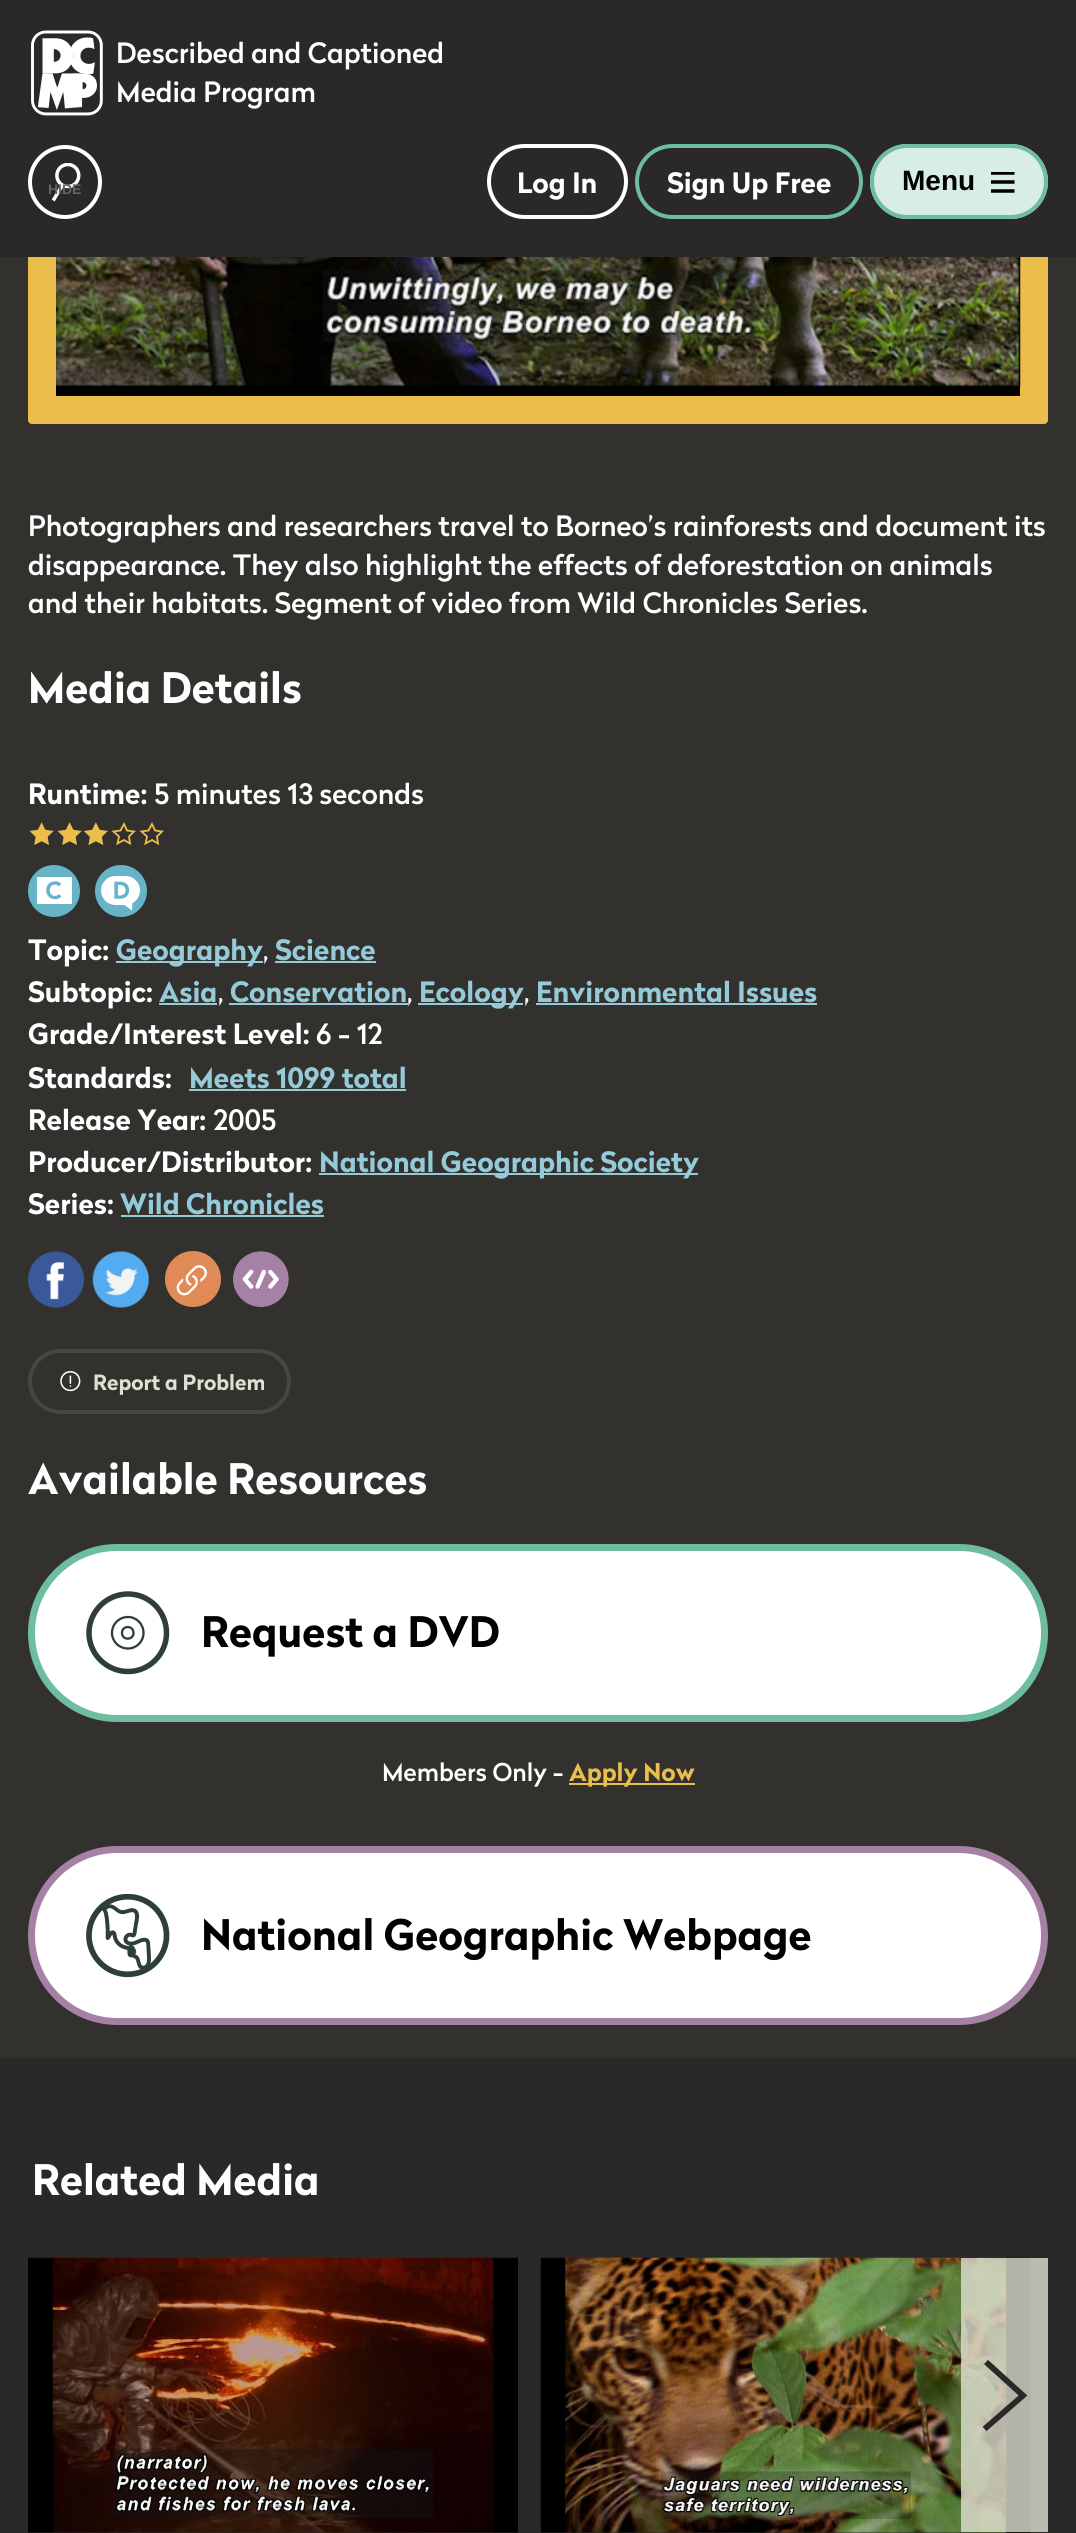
#include <cairo.h>
#include <math.h>
#include <stddef.h>

static cairo_t *ctx;

static void use_color(int r, int g, int b) {
    cairo_set_source_rgb(ctx, r / 255.0, g / 255.0, b / 255.0);
}

static void round_rect(double x, double y, double w, double h, double r) {
    cairo_new_sub_path(ctx);
    cairo_arc(ctx, x + w - r, y + h - r, r, 0, M_PI / 2);
    cairo_arc(ctx, x + r, y + h - r, r, M_PI / 2, M_PI);
    cairo_arc(ctx, x + r, y + r, r, M_PI, 1.5 * M_PI);
    cairo_arc(ctx, x + w - r, y + r, r, 1.5 * M_PI, 2 * M_PI);
    cairo_close_path(ctx);
}

static void picture(const char *path, double x, double y, double w, double h) {
    cairo_surface_t *image = cairo_image_surface_create_from_png(path);
    cairo_save(ctx);
    cairo_set_source_surface(ctx, image, x, y);
    cairo_rectangle(ctx, x, y, w, h);
    cairo_fill(ctx);
    cairo_restore(ctx);
    cairo_surface_destroy(image);
}

int main(void) {
    cairo_surface_t *surface = cairo_image_surface_create(CAIRO_FORMAT_RGB24, 1076, 2533);
    ctx = cairo_create(surface);
    cairo_font_options_t *options = cairo_font_options_create();
    cairo_font_options_set_hint_metrics(options, CAIRO_HINT_METRICS_OFF);
    cairo_font_options_set_hint_style(options, CAIRO_HINT_STYLE_NONE);
    cairo_set_font_options(ctx, options);
    cairo_set_miter_limit(ctx, 4);
    use_color(50, 49, 46);
    cairo_paint(ctx);
    use_color(235, 190, 75);
    round_rect(28, -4, 1020, 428, 4);
    cairo_fill(ctx);
    use_color(43, 41, 39);
    cairo_rectangle(ctx, 0, 0, 1076, 257);
    cairo_fill(ctx);
    picture("img1.png", 31, 30, 72, 86);
    cairo_select_font_face(ctx, "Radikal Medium", CAIRO_FONT_SLANT_NORMAL, CAIRO_FONT_WEIGHT_NORMAL);
    cairo_set_font_size(ctx, 28);
    use_color(255, 255, 255);
    cairo_move_to(ctx, 116, 63);
    cairo_show_text(ctx, "Described and Captioned");
    cairo_move_to(ctx, 116, 102);
    cairo_show_text(ctx, "Media Program");
    picture("img2.png", 51, 163, 30, 39);
    cairo_arc(ctx, 65, 182, 35, 0, 2 * M_PI);
    cairo_set_line_width(ctx, 4);
    cairo_stroke(ctx);
    cairo_select_font_face(ctx, "Liberation Sans", CAIRO_FONT_SLANT_NORMAL, CAIRO_FONT_WEIGHT_BOLD);
    cairo_set_font_size(ctx, 14);
    use_color(100, 99, 97);
    cairo_move_to(ctx, 48, 194);
    cairo_show_text(ctx, "HIDE");
    round_rect(489, 146, 137, 71, 35.5);
    use_color(255, 255, 255);
    cairo_stroke(ctx);
    cairo_select_font_face(ctx, "Radikal", CAIRO_FONT_SLANT_NORMAL, CAIRO_FONT_WEIGHT_BOLD);
    cairo_set_font_size(ctx, 28);
    cairo_move_to(ctx, 517, 193);
    cairo_show_text(ctx, "Log In");
    round_rect(637, 146, 224, 71, 35.5);
    use_color(110, 189, 160);
    cairo_stroke(ctx);
    use_color(255, 255, 255);
    cairo_move_to(ctx, 667, 193);
    cairo_show_text(ctx, "Sign Up Free");
    use_color(215, 237, 229);
    round_rect(870, 144, 178, 75, 37.5);
    cairo_fill(ctx);
    cairo_save(ctx);
    cairo_rectangle(ctx, 991, 172, 24, 21);
    cairo_clip(ctx);
    cairo_new_path(ctx);
    cairo_move_to(ctx, 991, 173);
    cairo_line_to(ctx, 1014.5, 173);
    cairo_move_to(ctx, 991, 182);
    cairo_line_to(ctx, 1014.5, 182);
    cairo_move_to(ctx, 991, 191);
    cairo_line_to(ctx, 1014.5, 191);
    use_color(0, 0, 0);
    cairo_set_line_width(ctx, 3.5);
    cairo_stroke(ctx);
    cairo_restore(ctx);
    round_rect(872, 146, 174, 71, 35.5);
    use_color(110, 189, 160);
    cairo_stroke(ctx);
    cairo_select_font_face(ctx, "Liberation Sans", CAIRO_FONT_SLANT_NORMAL, CAIRO_FONT_WEIGHT_BOLD);
    use_color(1, 1, 1);
    cairo_move_to(ctx, 902, 190);
    cairo_show_text(ctx, "Menu");
    use_color(0, 0, 0);
    cairo_rectangle(ctx, 56, 387, 964, 9);
    cairo_fill(ctx);
    picture("img3.png", 56, 257, 965, 130);
    cairo_select_font_face(ctx, "Radikal Medium", CAIRO_FONT_SLANT_NORMAL, CAIRO_FONT_WEIGHT_NORMAL);
    use_color(255, 255, 255);
    cairo_move_to(ctx, 28, 536);
    cairo_show_text(ctx, "Photographers and researchers travel to Borneo’s rainforests and document its");
    cairo_move_to(ctx, 28, 575);
    cairo_show_text(ctx, "disappearance. They also highlight the effects of deforestation on animals");
    cairo_move_to(ctx, 28, 613);
    cairo_show_text(ctx, "and their habitats. Segment of video from Wild Chronicles Series.");
    cairo_select_font_face(ctx, "Radikal", CAIRO_FONT_SLANT_NORMAL, CAIRO_FONT_WEIGHT_BOLD);
    cairo_set_font_size(ctx, 42);
    cairo_move_to(ctx, 28, 703);
    cairo_show_text(ctx, "Media Details");
    cairo_set_font_size(ctx, 28);
    cairo_move_to(ctx, 28, 804);
    cairo_show_text(ctx, "Runtime:");
    cairo_select_font_face(ctx, "Radikal Medium", CAIRO_FONT_SLANT_NORMAL, CAIRO_FONT_WEIGHT_NORMAL);
    cairo_move_to(ctx, 154, 804);
    cairo_show_text(ctx, "5 minutes 13 seconds");
    picture("img4.png", 29, 822, 25, 23);
    picture("img4.png", 57, 822, 25, 23);
    picture("img5.png", 84, 822, 24, 23);
    cairo_new_path(ctx);
    cairo_move_to(ctx, 124, 840);
    cairo_line_to(ctx, 117.5, 843.5);
    cairo_line_to(ctx, 119, 836.5);
    cairo_line_to(ctx, 113.5, 831.5);
    cairo_line_to(ctx, 120.5, 830.5);
    cairo_line_to(ctx, 124, 824);
    cairo_line_to(ctx, 127, 830.5);
    cairo_line_to(ctx, 134, 831.5);
    cairo_line_to(ctx, 129, 836.5);
    cairo_line_to(ctx, 130, 843.5);
    cairo_close_path(ctx);
    cairo_move_to(ctx, 152, 840);
    cairo_line_to(ctx, 145.5, 843.5);
    cairo_line_to(ctx, 147, 836.5);
    cairo_line_to(ctx, 141.5, 831.5);
    cairo_line_to(ctx, 148.5, 830.5);
    cairo_line_to(ctx, 152, 824);
    cairo_line_to(ctx, 155, 830.5);
    cairo_line_to(ctx, 162, 831.5);
    cairo_line_to(ctx, 157, 836.5);
    cairo_line_to(ctx, 158, 843.5);
    cairo_close_path(ctx);
    use_color(235, 190, 75);
    cairo_set_line_width(ctx, 1.8);
    cairo_stroke(ctx);
    picture("img6.png", 28, 865, 52, 52);
    picture("img7.png", 95, 865, 52, 52);
    cairo_select_font_face(ctx, "Radikal", CAIRO_FONT_SLANT_NORMAL, CAIRO_FONT_WEIGHT_BOLD);
    use_color(255, 255, 255);
    cairo_move_to(ctx, 28, 960);
    cairo_show_text(ctx, "Topic:");
    use_color(149, 202, 216);
    cairo_rectangle(ctx, 116, 961, 147, 2);
    cairo_fill(ctx);
    cairo_move_to(ctx, 116, 960);
    cairo_show_text(ctx, "Geography");
    cairo_select_font_face(ctx, "Radikal Medium", CAIRO_FONT_SLANT_NORMAL, CAIRO_FONT_WEIGHT_NORMAL);
    use_color(255, 255, 255);
    cairo_move_to(ctx, 263, 960);
    cairo_show_text(ctx, ",");
    cairo_select_font_face(ctx, "Radikal", CAIRO_FONT_SLANT_NORMAL, CAIRO_FONT_WEIGHT_BOLD);
    use_color(149, 202, 216);
    cairo_move_to(ctx, 275, 960);
    cairo_show_text(ctx, "Science");
    cairo_rectangle(ctx, 275, 961, 101, 2);
    cairo_fill(ctx);
    use_color(255, 255, 255);
    cairo_move_to(ctx, 28, 1002);
    cairo_show_text(ctx, "Subtopic:");
    use_color(149, 202, 216);
    cairo_move_to(ctx, 159, 1002);
    cairo_show_text(ctx, "Asia");
    cairo_rectangle(ctx, 159, 1003, 58, 2);
    cairo_fill(ctx);
    cairo_select_font_face(ctx, "Radikal Medium", CAIRO_FONT_SLANT_NORMAL, CAIRO_FONT_WEIGHT_NORMAL);
    use_color(255, 255, 255);
    cairo_move_to(ctx, 218, 1002);
    cairo_show_text(ctx, ",");
    cairo_select_font_face(ctx, "Radikal", CAIRO_FONT_SLANT_NORMAL, CAIRO_FONT_WEIGHT_BOLD);
    use_color(149, 202, 216);
    cairo_move_to(ctx, 230, 1002);
    cairo_show_text(ctx, "Conservation");
    cairo_rectangle(ctx, 229, 1003, 179, 2);
    cairo_fill(ctx);
    cairo_select_font_face(ctx, "Radikal Medium", CAIRO_FONT_SLANT_NORMAL, CAIRO_FONT_WEIGHT_NORMAL);
    use_color(255, 255, 255);
    cairo_move_to(ctx, 407, 1002);
    cairo_show_text(ctx, ",");
    use_color(149, 202, 216);
    cairo_rectangle(ctx, 418, 1003, 105, 2);
    cairo_fill(ctx);
    cairo_select_font_face(ctx, "Radikal", CAIRO_FONT_SLANT_NORMAL, CAIRO_FONT_WEIGHT_BOLD);
    cairo_move_to(ctx, 419, 1002);
    cairo_show_text(ctx, "Ecology");
    cairo_select_font_face(ctx, "Radikal Medium", CAIRO_FONT_SLANT_NORMAL, CAIRO_FONT_WEIGHT_NORMAL);
    use_color(255, 255, 255);
    cairo_move_to(ctx, 524, 1002);
    cairo_show_text(ctx, ",");
    cairo_select_font_face(ctx, "Radikal", CAIRO_FONT_SLANT_NORMAL, CAIRO_FONT_WEIGHT_BOLD);
    use_color(149, 202, 216);
    cairo_move_to(ctx, 536, 1002);
    cairo_show_text(ctx, "Environmental Issues");
    cairo_rectangle(ctx, 536, 1003, 281, 2);
    cairo_fill(ctx);
    use_color(255, 255, 255);
    cairo_move_to(ctx, 28, 1044);
    cairo_show_text(ctx, "Grade/Interest Level:");
    cairo_select_font_face(ctx, "Radikal Medium", CAIRO_FONT_SLANT_NORMAL, CAIRO_FONT_WEIGHT_NORMAL);
    cairo_move_to(ctx, 316, 1044);
    cairo_show_text(ctx, "6 - 12");
    cairo_select_font_face(ctx, "Radikal", CAIRO_FONT_SLANT_NORMAL, CAIRO_FONT_WEIGHT_BOLD);
    cairo_move_to(ctx, 28, 1088);
    cairo_show_text(ctx, "Standards:");
    use_color(149, 202, 216);
    cairo_move_to(ctx, 189, 1088);
    cairo_show_text(ctx, "Meets 1099 total");
    cairo_rectangle(ctx, 189, 1089, 217, 2);
    cairo_fill(ctx);
    use_color(255, 255, 255);
    cairo_move_to(ctx, 28, 1130);
    cairo_show_text(ctx, "Release Year:");
    cairo_select_font_face(ctx, "Radikal Medium", CAIRO_FONT_SLANT_NORMAL, CAIRO_FONT_WEIGHT_NORMAL);
    cairo_move_to(ctx, 213, 1130);
    cairo_show_text(ctx, "2005");
    cairo_select_font_face(ctx, "Radikal", CAIRO_FONT_SLANT_NORMAL, CAIRO_FONT_WEIGHT_BOLD);
    cairo_move_to(ctx, 28, 1172);
    cairo_show_text(ctx, "Producer/Distributor:");
    use_color(149, 202, 216);
    cairo_rectangle(ctx, 319, 1173, 379, 2);
    cairo_fill(ctx);
    cairo_move_to(ctx, 319, 1172);
    cairo_show_text(ctx, "National Geographic Society");
    use_color(255, 255, 255);
    cairo_move_to(ctx, 28, 1214);
    cairo_show_text(ctx, "Series:");
    use_color(149, 202, 216);
    cairo_move_to(ctx, 120, 1214);
    cairo_show_text(ctx, "Wild Chronicles");
    cairo_rectangle(ctx, 121, 1215, 203, 2);
    cairo_fill(ctx);
    picture("img8.png", 28, 1251, 56, 57);
    picture("img9.png", 92, 1251, 57, 57);
    use_color(224, 138, 87);
    cairo_arc(ctx, 193, 1279, 28, 0, 2 * M_PI);
    cairo_fill(ctx);
    picture("img10.png", 176, 1265, 31, 31);
    picture("img11.png", 233, 1251, 56, 56);
    round_rect(30, 1351, 259, 61, 30.5);
    use_color(72, 70, 68);
    cairo_set_line_width(ctx, 4);
    cairo_stroke(ctx);
    picture("img12.png", 60, 1371, 21, 21);
    cairo_set_font_size(ctx, 21);
    use_color(223, 224, 209);
    cairo_move_to(ctx, 93, 1390);
    cairo_show_text(ctx, "Report a Problem");
    cairo_set_font_size(ctx, 42);
    use_color(255, 255, 255);
    cairo_move_to(ctx, 28, 1494);
    cairo_show_text(ctx, "Available Resources");
    round_rect(31.5, 1547.5, 1013, 171, 85.5);
    cairo_fill_preserve(ctx);
    use_color(110, 189, 160);
    cairo_set_line_width(ctx, 7);
    cairo_stroke(ctx);
    cairo_new_path(ctx);
    cairo_move_to(ctx, 166.5, 1633);
    cairo_curve_to(ctx, 166.5, 1654, 149.5, 1671.5, 128, 1671.5);
    cairo_curve_to(ctx, 106.5, 1671.5, 89, 1654, 89, 1633);
    cairo_curve_to(ctx, 89, 1611.5, 106.5, 1594, 128, 1594);
    cairo_curve_to(ctx, 149.5, 1594, 166.5, 1611.5, 166.5, 1633);
    cairo_close_path(ctx);
    use_color(45, 62, 60);
    cairo_set_line_width(ctx, 5.5);
    cairo_stroke(ctx);
    cairo_new_path(ctx);
    cairo_move_to(ctx, 143.5, 1633);
    cairo_curve_to(ctx, 143.5, 1641.5, 136.5, 1648.5, 128, 1648.5);
    cairo_curve_to(ctx, 119, 1648.5, 112, 1641.5, 112, 1633);
    cairo_curve_to(ctx, 112, 1624, 119, 1617, 128, 1617);
    cairo_curve_to(ctx, 136.5, 1617, 143.5, 1624, 143.5, 1633);
    cairo_close_path(ctx);
    cairo_move_to(ctx, 133.5, 1633);
    cairo_curve_to(ctx, 133.5, 1640.5, 122, 1640.5, 122, 1633);
    cairo_curve_to(ctx, 122, 1625, 133.5, 1625, 133.5, 1633);
    cairo_close_path(ctx);
    cairo_set_line_width(ctx, 2.3);
    cairo_stroke(ctx);
    use_color(1, 1, 1);
    cairo_move_to(ctx, 201, 1647);
    cairo_show_text(ctx, "Request a DVD");
    cairo_select_font_face(ctx, "Radikal Medium", CAIRO_FONT_SLANT_NORMAL, CAIRO_FONT_WEIGHT_NORMAL);
    cairo_set_font_size(ctx, 24.5);
    use_color(255, 255, 255);
    cairo_move_to(ctx, 382, 1781);
    cairo_show_text(ctx, "Members Only -");
    use_color(235, 190, 75);
    cairo_rectangle(ctx, 569, 1783, 126, 2);
    cairo_fill(ctx);
    cairo_select_font_face(ctx, "Radikal", CAIRO_FONT_SLANT_NORMAL, CAIRO_FONT_WEIGHT_BOLD);
    cairo_move_to(ctx, 569, 1781);
    cairo_show_text(ctx, "Apply Now");
    use_color(255, 255, 255);
    round_rect(31.5, 1849.5, 1013, 172, 86);
    cairo_fill_preserve(ctx);
    use_color(165, 129, 165);
    cairo_set_line_width(ctx, 7);
    cairo_stroke(ctx);
    picture("img13.png", 86, 1894, 84, 84);
    cairo_set_font_size(ctx, 42);
    use_color(1, 1, 1);
    cairo_move_to(ctx, 201, 1950);
    cairo_show_text(ctx, "National Geographic Webpage");
    use_color(43, 41, 39);
    cairo_rectangle(ctx, 0, 2058, 1076, 475);
    cairo_fill(ctx);
    use_color(255, 255, 255);
    cairo_move_to(ctx, 32, 2195);
    cairo_show_text(ctx, "Related Media");
    picture("img14.png", 28, 2257, 490, 276);
    picture("img15.png", 540, 2257, 491, 276);
    cairo_set_source_rgba(ctx, 0.875, 0.878, 0.816, 0.8);
    cairo_rectangle(ctx, 961, 2258, 87, 274);
    cairo_fill(ctx);
    cairo_new_path(ctx);
    cairo_move_to(ctx, 984.5, 2429);
    cairo_line_to(ctx, 1023, 2395.5);
    cairo_line_to(ctx, 986, 2362);
    use_color(43, 41, 39);
    cairo_set_line_width(ctx, 5.8);
    cairo_stroke(ctx);
    cairo_surface_write_to_png(surface, "result.png");
    cairo_font_options_destroy(options);
    cairo_destroy(ctx);
    cairo_surface_destroy(surface);
    return 0;
}
